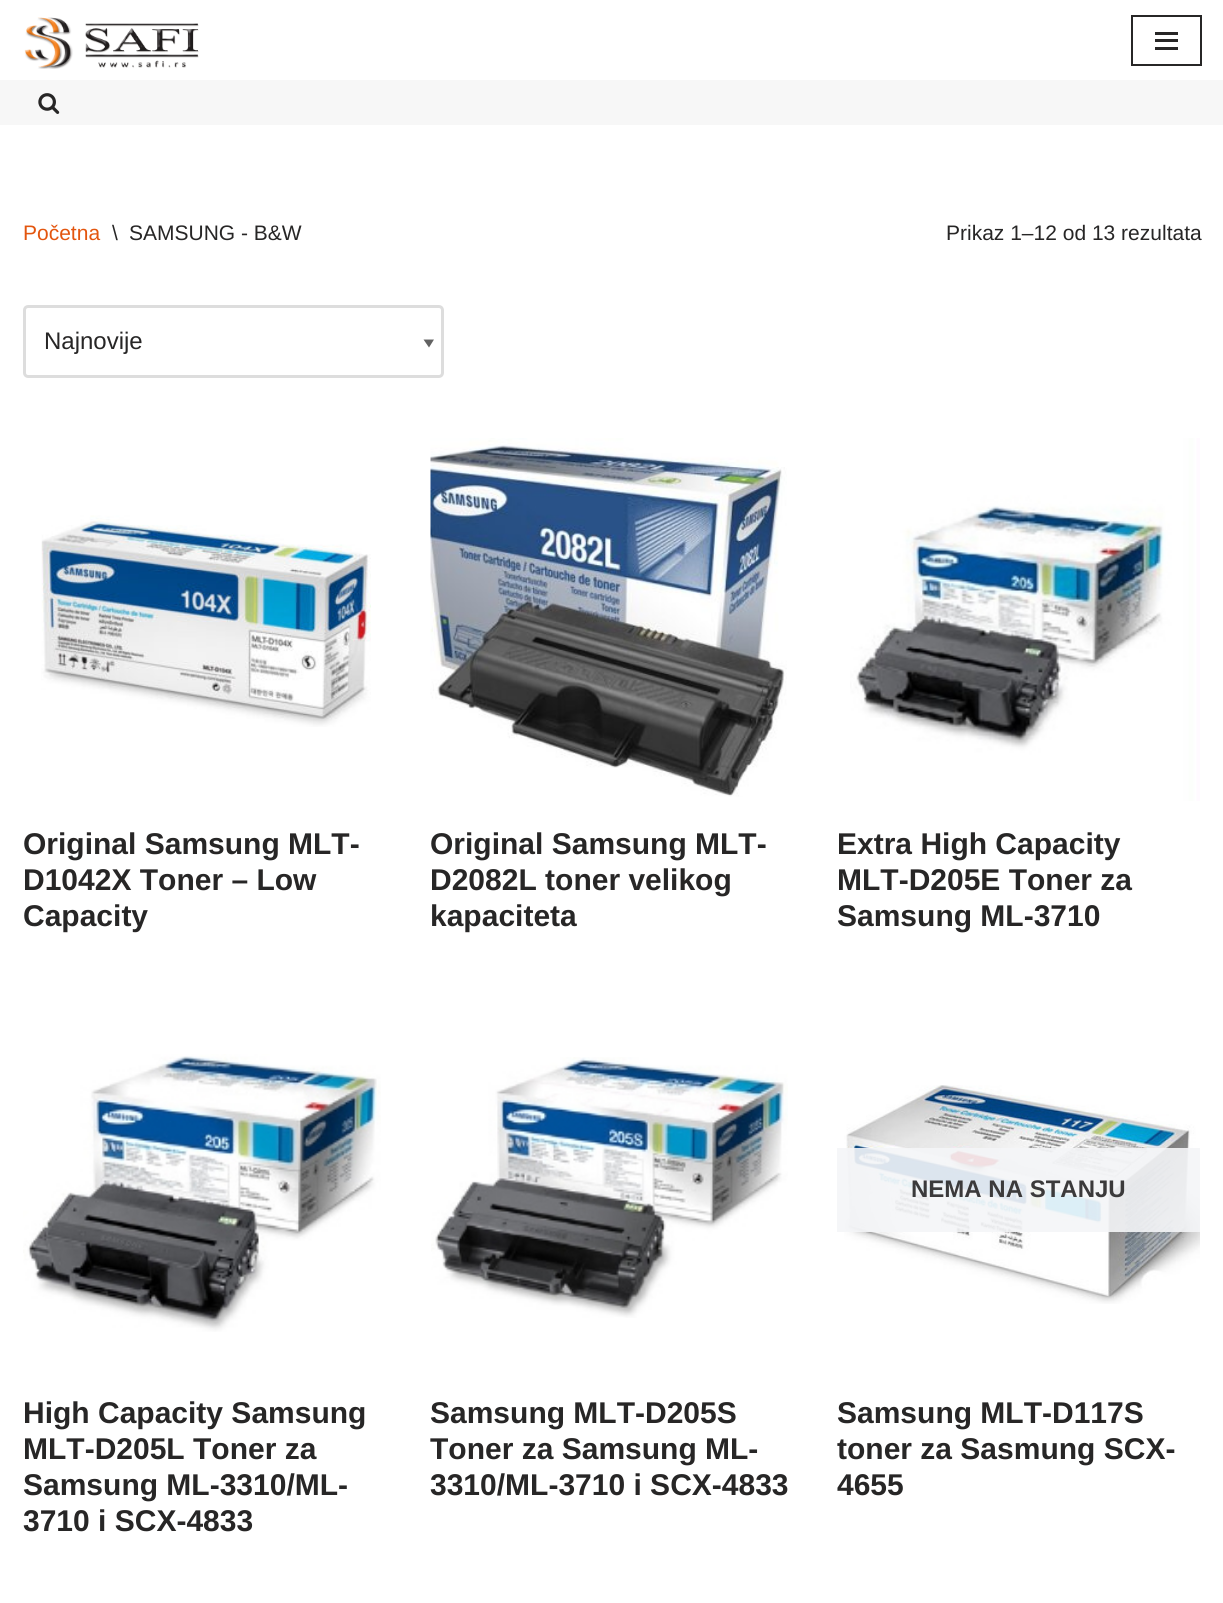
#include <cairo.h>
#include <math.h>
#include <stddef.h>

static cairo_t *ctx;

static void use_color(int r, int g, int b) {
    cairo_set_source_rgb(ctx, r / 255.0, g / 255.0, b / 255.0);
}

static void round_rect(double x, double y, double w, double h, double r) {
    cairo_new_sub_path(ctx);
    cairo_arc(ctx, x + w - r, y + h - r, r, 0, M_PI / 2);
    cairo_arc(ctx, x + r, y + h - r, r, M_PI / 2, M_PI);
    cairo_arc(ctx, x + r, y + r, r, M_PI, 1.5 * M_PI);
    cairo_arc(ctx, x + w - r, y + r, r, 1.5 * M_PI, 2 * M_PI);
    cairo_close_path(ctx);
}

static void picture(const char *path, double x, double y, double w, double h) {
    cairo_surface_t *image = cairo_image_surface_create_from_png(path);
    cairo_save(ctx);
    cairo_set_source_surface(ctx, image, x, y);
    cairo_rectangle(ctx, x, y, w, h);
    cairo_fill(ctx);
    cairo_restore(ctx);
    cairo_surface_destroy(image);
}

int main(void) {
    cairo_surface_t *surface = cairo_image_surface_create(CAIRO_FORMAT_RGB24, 1223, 1603);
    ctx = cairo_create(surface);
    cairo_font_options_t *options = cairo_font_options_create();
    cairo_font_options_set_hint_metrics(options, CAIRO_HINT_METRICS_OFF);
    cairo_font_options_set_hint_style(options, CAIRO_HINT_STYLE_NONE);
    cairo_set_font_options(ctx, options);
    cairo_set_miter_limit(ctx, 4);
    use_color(255, 255, 255);
    cairo_paint(ctx);
    picture("img1.png", 24, 17, 175, 52);
    cairo_rectangle(ctx, 1132, 16, 69, 49);
    use_color(39, 38, 38);
    cairo_stroke(ctx);
    cairo_rectangle(ctx, 1155, 32, 23, 3);
    cairo_fill(ctx);
    cairo_rectangle(ctx, 1155, 39, 23, 3);
    cairo_fill(ctx);
    cairo_rectangle(ctx, 1155, 47, 23, 3);
    cairo_fill(ctx);
    use_color(247, 247, 247);
    cairo_rectangle(ctx, 0, 80, 1223, 45);
    cairo_fill(ctx);
    picture("img2.png", 38, 93, 22, 21);
    cairo_select_font_face(ctx, "Liberation Sans", CAIRO_FONT_SLANT_NORMAL, CAIRO_FONT_WEIGHT_NORMAL);
    cairo_set_font_size(ctx, 21);
    use_color(227, 85, 14);
    cairo_move_to(ctx, 23, 240);
    cairo_show_text(ctx, "Početna");
    use_color(39, 38, 38);
    cairo_move_to(ctx, 112, 240);
    cairo_show_text(ctx, "\\");
    cairo_move_to(ctx, 129, 240);
    cairo_show_text(ctx, "SAMSUNG - B&W");
    cairo_move_to(ctx, 946, 240);
    cairo_show_text(ctx, "Prikaz 1–12 od 13 rezultata");
    use_color(98, 98, 98);
    cairo_new_path(ctx);
    cairo_move_to(ctx, 434, 339.5);
    cairo_line_to(ctx, 429, 347.5);
    cairo_line_to(ctx, 423.5, 339.5);
    cairo_close_path(ctx);
    cairo_fill(ctx);
    round_rect(24.5, 306.5, 418, 70, 3.5);
    use_color(221, 221, 221);
    cairo_set_line_width(ctx, 3);
    cairo_stroke(ctx);
    cairo_set_font_size(ctx, 24);
    use_color(39, 38, 38);
    cairo_move_to(ctx, 44, 349);
    cairo_show_text(ctx, "Najnovije");
    picture("img3.png", 41, 515, 330, 212);
    cairo_select_font_face(ctx, "Liberation Sans", CAIRO_FONT_SLANT_NORMAL, CAIRO_FONT_WEIGHT_BOLD);
    cairo_set_font_size(ctx, 30);
    cairo_move_to(ctx, 23, 854);
    cairo_show_text(ctx, "Original Samsung MLT-");
    cairo_move_to(ctx, 23, 890);
    cairo_show_text(ctx, "D1042X Toner – Low");
    cairo_move_to(ctx, 23, 926);
    cairo_show_text(ctx, "Capacity");
    picture("img4.png", 430, 438, 357, 359);
    cairo_move_to(ctx, 430, 854);
    cairo_show_text(ctx, "Original Samsung MLT-");
    cairo_move_to(ctx, 430, 890);
    cairo_show_text(ctx, "D2082L toner velikog");
    cairo_move_to(ctx, 430, 926);
    cairo_show_text(ctx, "kapaciteta");
    picture("img5.png", 850, 438, 350, 363);
    cairo_move_to(ctx, 837, 854);
    cairo_show_text(ctx, "Extra High Capacity");
    cairo_move_to(ctx, 837, 890);
    cairo_show_text(ctx, "MLT-D205E Toner za");
    cairo_move_to(ctx, 837, 926);
    cairo_show_text(ctx, "Samsung ML-3710");
    picture("img6.png", 23, 1054, 358, 278);
    cairo_move_to(ctx, 23, 1423);
    cairo_show_text(ctx, "High Capacity Samsung");
    cairo_move_to(ctx, 23, 1459);
    cairo_show_text(ctx, "MLT-D205L Toner za");
    cairo_move_to(ctx, 23, 1495);
    cairo_show_text(ctx, "Samsung ML-3310/ML-");
    cairo_move_to(ctx, 23, 1531);
    cairo_show_text(ctx, "3710 i SCX-4833");
    picture("img7.png", 431, 1057, 357, 261);
    cairo_move_to(ctx, 430, 1423);
    cairo_show_text(ctx, "Samsung MLT-D205S");
    cairo_move_to(ctx, 430, 1459);
    cairo_show_text(ctx, "Toner za Samsung ML-");
    cairo_move_to(ctx, 430, 1495);
    cairo_show_text(ctx, "3310/ML-3710 i SCX-4833");
    picture("img8.png", 844, 1085, 356, 219);
    cairo_set_source_rgba(ctx, 0.957, 0.961, 0.969, 0.9);
    cairo_rectangle(ctx, 837, 1148, 363, 84);
    cairo_fill(ctx);
    cairo_set_font_size(ctx, 24);
    use_color(59, 58, 59);
    cairo_move_to(ctx, 911, 1197);
    cairo_show_text(ctx, "NEMA NA STANJU");
    cairo_set_font_size(ctx, 30);
    use_color(39, 38, 38);
    cairo_move_to(ctx, 837, 1423);
    cairo_show_text(ctx, "Samsung MLT-D117S");
    cairo_move_to(ctx, 837, 1459);
    cairo_show_text(ctx, "toner za Sasmung SCX-");
    cairo_move_to(ctx, 837, 1495);
    cairo_show_text(ctx, "4655");
    cairo_surface_write_to_png(surface, "result.png");
    cairo_font_options_destroy(options);
    cairo_destroy(ctx);
    cairo_surface_destroy(surface);
    return 0;
}
